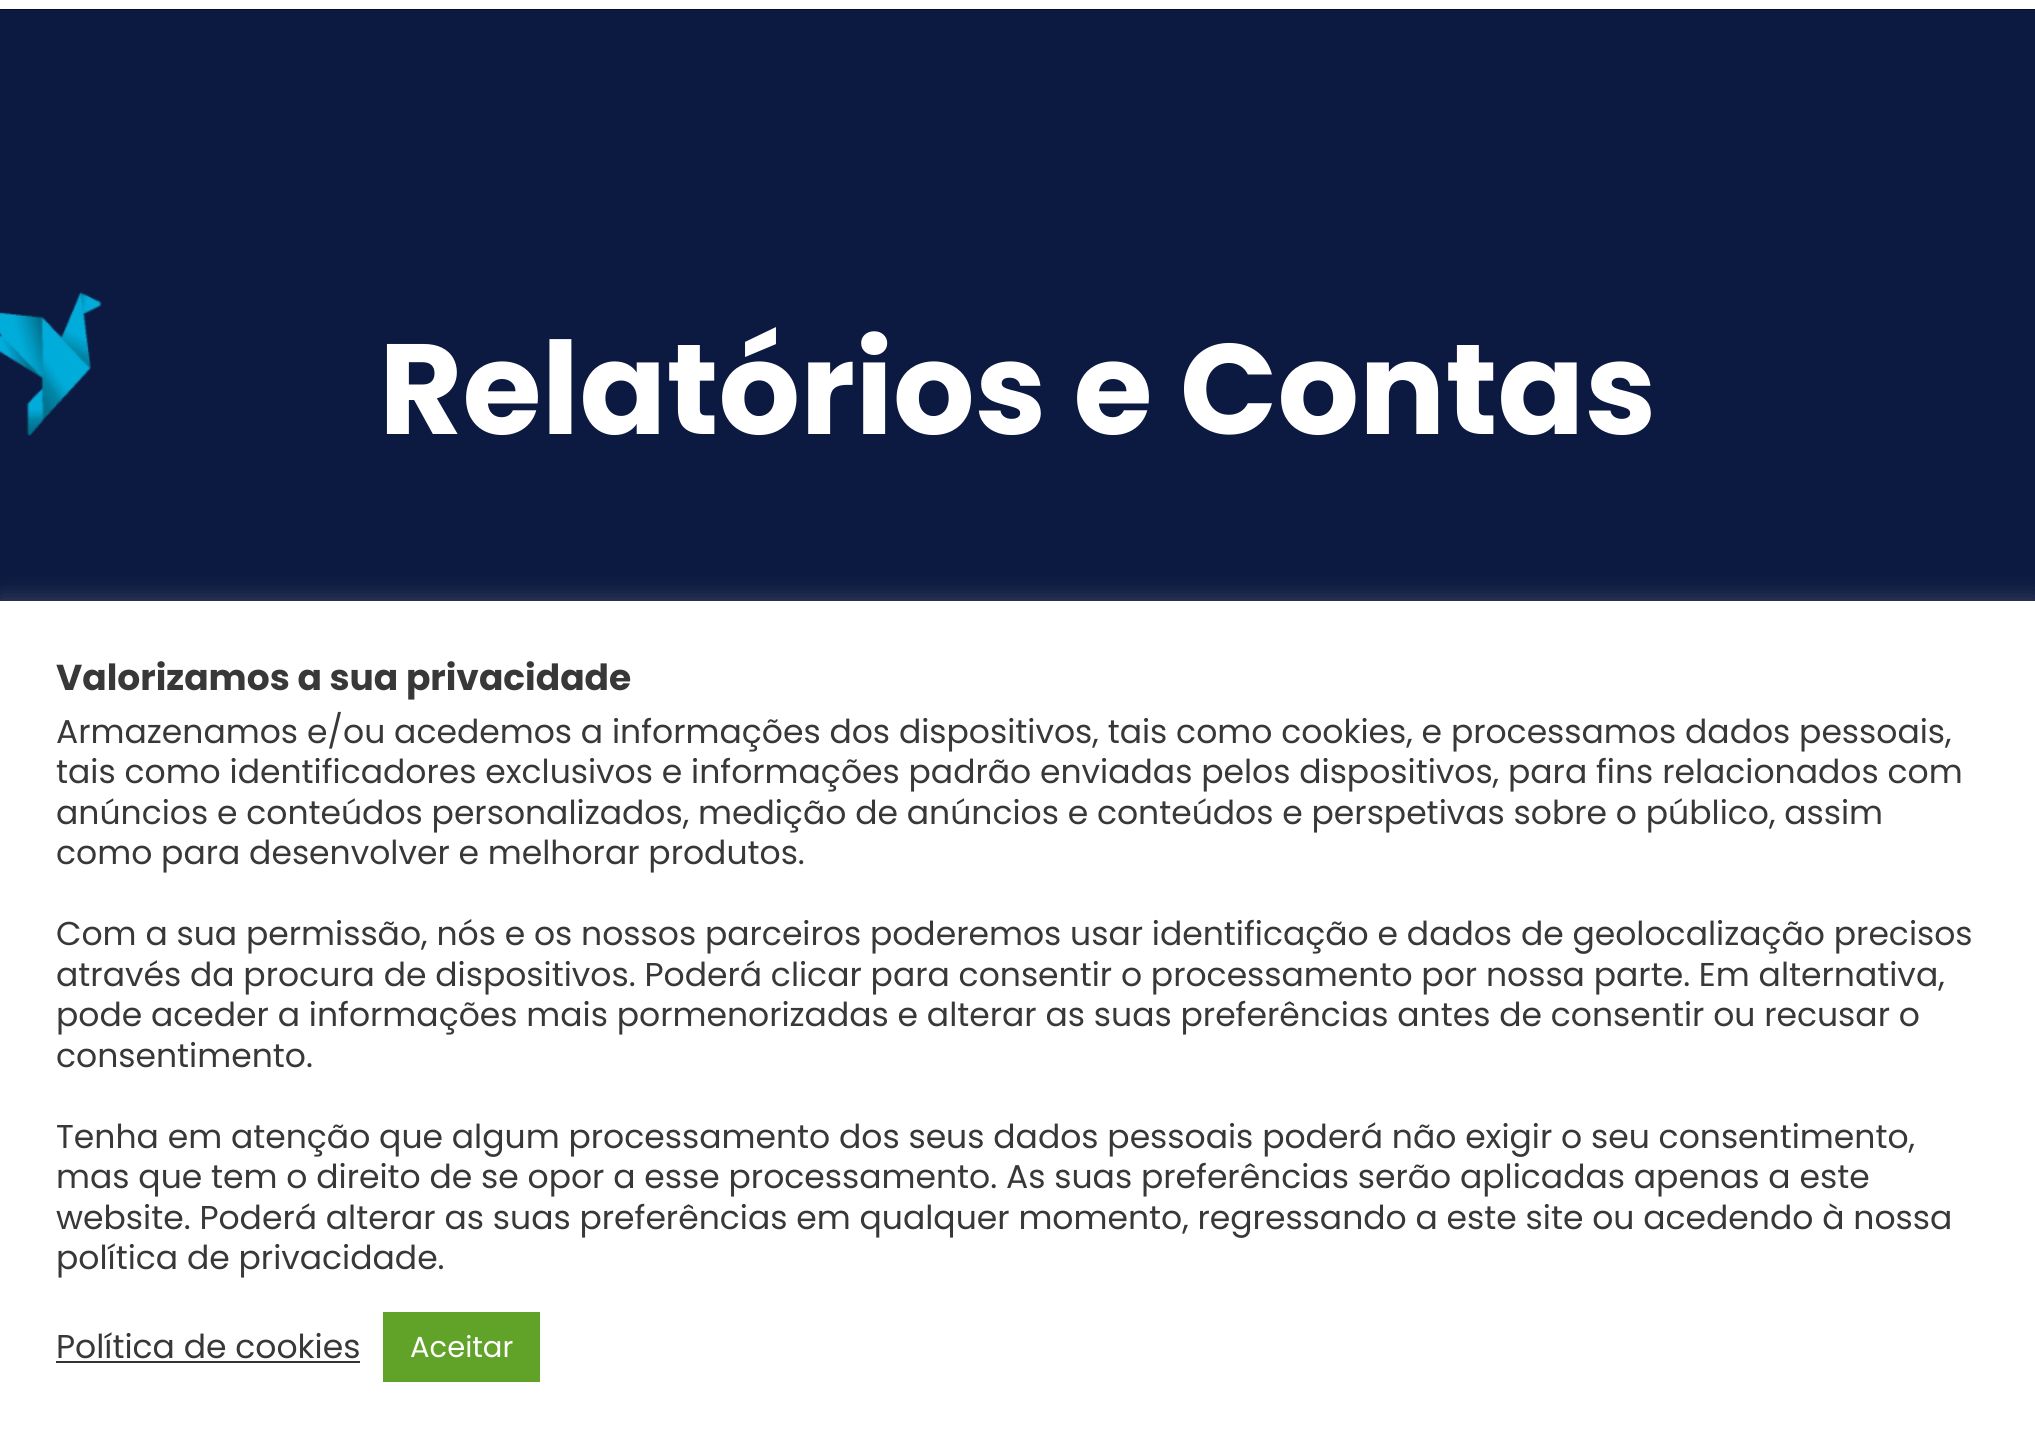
#include <cairo.h>
#include <math.h>
#include <stddef.h>

static cairo_t *ctx;

static void use_color(int r, int g, int b) {
    cairo_set_source_rgb(ctx, r / 255.0, g / 255.0, b / 255.0);
}

static void round_rect(double x, double y, double w, double h, double r) {
    cairo_new_sub_path(ctx);
    cairo_arc(ctx, x + w - r, y + h - r, r, 0, M_PI / 2);
    cairo_arc(ctx, x + r, y + h - r, r, M_PI / 2, M_PI);
    cairo_arc(ctx, x + r, y + r, r, M_PI, 1.5 * M_PI);
    cairo_arc(ctx, x + w - r, y + r, r, 1.5 * M_PI, 2 * M_PI);
    cairo_close_path(ctx);
}

static void shadow(double x, double y, double w, double h, double r, double blur, double alpha) {
    cairo_push_group_with_content(ctx, CAIRO_CONTENT_ALPHA);
    cairo_set_operator(ctx, CAIRO_OPERATOR_SOURCE);
    for (int i = 15; i >= -15 && fmin(w, h) + blur * i / 3 > 0; i -= 2) {
        double e = blur * i / 6;
        cairo_set_source_rgba(ctx, 0, 0, 0, alpha * erfc((i - 1) / 8.5) / 2);
        round_rect(x - e, y - e, w + 2 * e, h + 2 * e, fmax(0, fmin(r + e + blur * .6, fmin(w, h) / 2 + e)));
        cairo_fill(ctx);
    }
    cairo_pattern_t *soft = cairo_pop_group(ctx);
    cairo_mask(ctx, soft);
    cairo_pattern_destroy(soft);
}

static void picture(const char *path, double x, double y, double w, double h) {
    cairo_surface_t *image = cairo_image_surface_create_from_png(path);
    cairo_save(ctx);
    cairo_set_source_surface(ctx, image, x, y);
    cairo_rectangle(ctx, x, y, w, h);
    cairo_fill(ctx);
    cairo_restore(ctx);
    cairo_surface_destroy(image);
}

int main(void) {
    cairo_surface_t *surface = cairo_image_surface_create(CAIRO_FORMAT_RGB24, 2035, 1448);
    ctx = cairo_create(surface);
    cairo_font_options_t *options = cairo_font_options_create();
    cairo_font_options_set_hint_metrics(options, CAIRO_HINT_METRICS_OFF);
    cairo_font_options_set_hint_style(options, CAIRO_HINT_STYLE_NONE);
    cairo_set_font_options(ctx, options);
    cairo_set_miter_limit(ctx, 4);
    use_color(255, 255, 255);
    cairo_paint(ctx);
    use_color(0, 0, 0);
    cairo_rectangle(ctx, 0, 9, 2035, 1);
    cairo_fill(ctx);
    picture("img1.png", 0, 9, 2035, 592);
    cairo_select_font_face(ctx, "Poppins", CAIRO_FONT_SLANT_NORMAL, CAIRO_FONT_WEIGHT_BOLD);
    cairo_set_font_size(ctx, 128.25);
    use_color(255, 255, 255);
    cairo_move_to(ctx, 379, 434);
    cairo_show_text(ctx, "Relatórios e Contas");
    use_color(172, 171, 171);
    shadow(0, 599, 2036, 848, 0, 11, 0.3);
    use_color(255, 255, 255);
    cairo_rectangle(ctx, 0, 601, 2035, 847);
    cairo_fill(ctx);
    cairo_set_font_size(ctx, 36);
    use_color(56, 56, 56);
    cairo_move_to(ctx, 56, 690);
    cairo_show_text(ctx, "Valorizamos a sua privacidade");
    cairo_select_font_face(ctx, "Poppins", CAIRO_FONT_SLANT_NORMAL, CAIRO_FONT_WEIGHT_NORMAL);
    cairo_set_font_size(ctx, 33);
    cairo_move_to(ctx, 56, 743);
    cairo_show_text(ctx, "Armazenamos e/ou acedemos a informações dos dispositivos, tais como cookies, e processamos dados pessoais,");
    cairo_move_to(ctx, 56, 783);
    cairo_show_text(ctx, "tais como identificadores exclusivos e informações padrão enviadas pelos dispositivos, para fins relacionados com");
    cairo_move_to(ctx, 56, 824);
    cairo_show_text(ctx, "anúncios e conteúdos personalizados, medição de anúncios e conteúdos e perspetivas sobre o público, assim");
    cairo_move_to(ctx, 56, 864);
    cairo_show_text(ctx, "como para desenvolver e melhorar produtos.");
    cairo_move_to(ctx, 56, 945);
    cairo_show_text(ctx, "Com a sua permissão, nós e os nossos parceiros poderemos usar identificação e dados de geolocalização precisos");
    cairo_move_to(ctx, 56, 986);
    cairo_show_text(ctx, "através da procura de dispositivos. Poderá clicar para consentir o processamento por nossa parte. Em alternativa,");
    cairo_move_to(ctx, 56, 1026);
    cairo_show_text(ctx, "pode aceder a informações mais pormenorizadas e alterar as suas preferências antes de consentir ou recusar o");
    cairo_move_to(ctx, 56, 1067);
    cairo_show_text(ctx, "consentimento.");
    cairo_move_to(ctx, 56, 1148);
    cairo_show_text(ctx, "Tenha em atenção que algum processamento dos seus dados pessoais poderá não exigir o seu consentimento,");
    cairo_move_to(ctx, 56, 1188);
    cairo_show_text(ctx, "mas que tem o direito de se opor a esse processamento. As suas preferências serão aplicadas apenas a este");
    cairo_move_to(ctx, 56, 1229);
    cairo_show_text(ctx, "website. Poderá alterar as suas preferências em qualquer momento, regressando a este site ou acedendo à nossa");
    cairo_move_to(ctx, 56, 1269);
    cairo_show_text(ctx, "política de privacidade.");
    cairo_move_to(ctx, 56, 1358);
    cairo_show_text(ctx, "Política de cookies");
    use_color(51, 51, 51);
    cairo_rectangle(ctx, 56, 1361, 304, 2);
    cairo_fill(ctx);
    use_color(97, 162, 41);
    cairo_rectangle(ctx, 383, 1312, 157, 70);
    cairo_fill(ctx);
    cairo_set_font_size(ctx, 29);
    use_color(255, 255, 255);
    cairo_move_to(ctx, 410, 1357);
    cairo_show_text(ctx, "Aceitar");
    cairo_surface_write_to_png(surface, "result.png");
    cairo_font_options_destroy(options);
    cairo_destroy(ctx);
    cairo_surface_destroy(surface);
    return 0;
}
